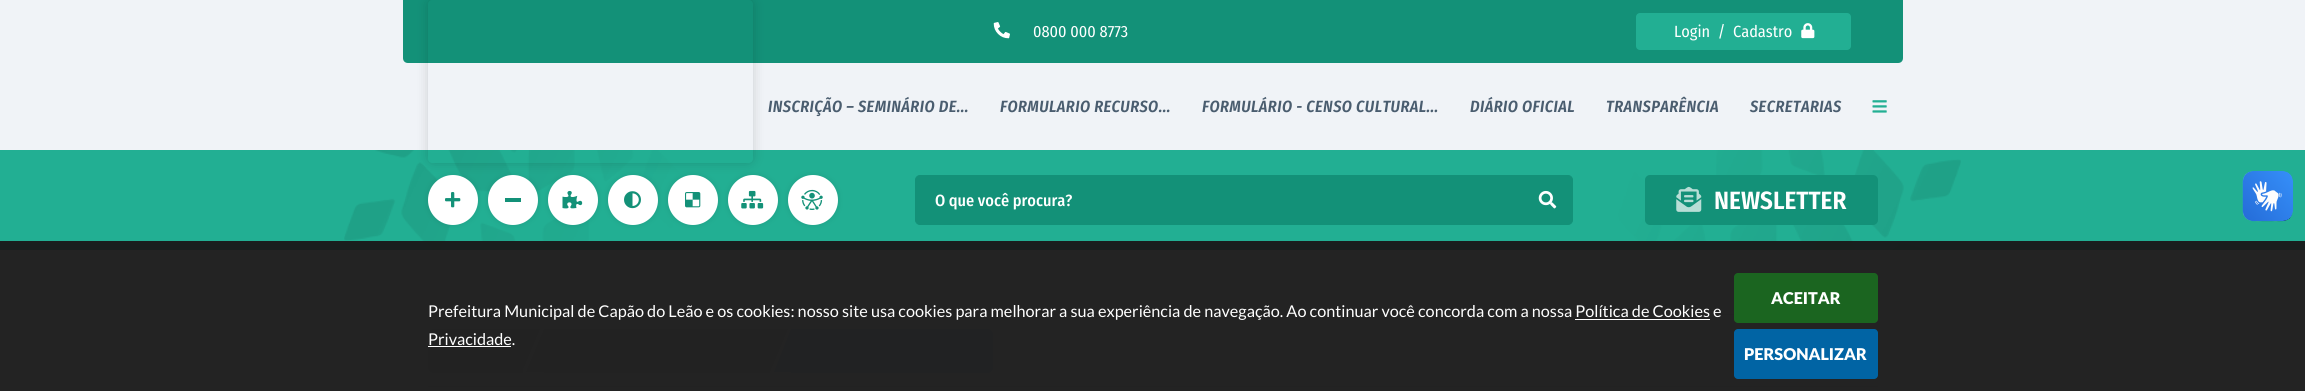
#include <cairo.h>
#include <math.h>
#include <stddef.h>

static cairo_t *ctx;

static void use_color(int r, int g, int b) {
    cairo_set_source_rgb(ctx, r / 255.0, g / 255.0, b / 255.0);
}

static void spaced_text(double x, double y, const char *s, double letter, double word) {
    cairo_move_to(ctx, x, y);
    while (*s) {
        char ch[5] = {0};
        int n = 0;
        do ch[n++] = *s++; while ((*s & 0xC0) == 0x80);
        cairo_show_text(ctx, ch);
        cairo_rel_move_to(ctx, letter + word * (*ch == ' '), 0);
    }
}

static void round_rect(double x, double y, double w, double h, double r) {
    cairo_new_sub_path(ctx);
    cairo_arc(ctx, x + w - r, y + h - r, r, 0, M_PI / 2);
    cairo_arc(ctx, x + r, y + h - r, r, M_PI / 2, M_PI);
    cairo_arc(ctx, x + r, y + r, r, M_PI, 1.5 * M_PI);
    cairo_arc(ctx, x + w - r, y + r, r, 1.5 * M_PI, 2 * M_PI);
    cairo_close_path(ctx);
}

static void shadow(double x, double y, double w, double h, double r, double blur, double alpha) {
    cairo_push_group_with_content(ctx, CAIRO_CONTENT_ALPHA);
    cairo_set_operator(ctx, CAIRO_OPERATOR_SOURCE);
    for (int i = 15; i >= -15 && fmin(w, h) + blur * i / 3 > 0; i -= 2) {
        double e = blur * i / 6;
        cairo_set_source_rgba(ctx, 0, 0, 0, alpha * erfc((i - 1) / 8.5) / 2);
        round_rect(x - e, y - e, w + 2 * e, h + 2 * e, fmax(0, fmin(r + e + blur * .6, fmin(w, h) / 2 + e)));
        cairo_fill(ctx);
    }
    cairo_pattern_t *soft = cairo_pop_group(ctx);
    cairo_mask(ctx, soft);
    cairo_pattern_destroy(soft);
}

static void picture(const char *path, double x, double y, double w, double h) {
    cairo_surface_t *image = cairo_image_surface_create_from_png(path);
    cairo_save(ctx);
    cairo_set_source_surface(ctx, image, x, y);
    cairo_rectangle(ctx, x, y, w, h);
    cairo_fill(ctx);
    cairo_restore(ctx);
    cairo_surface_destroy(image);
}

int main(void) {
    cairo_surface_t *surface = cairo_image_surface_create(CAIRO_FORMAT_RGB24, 2305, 391);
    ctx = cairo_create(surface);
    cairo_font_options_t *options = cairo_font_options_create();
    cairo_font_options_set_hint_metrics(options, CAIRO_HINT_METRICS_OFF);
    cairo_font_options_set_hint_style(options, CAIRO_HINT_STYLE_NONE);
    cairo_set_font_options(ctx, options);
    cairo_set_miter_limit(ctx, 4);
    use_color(255, 255, 255);
    cairo_paint(ctx);
    use_color(240, 243, 247);
    cairo_rectangle(ctx, 0, 0, 2305, 150);
    cairo_fill(ctx);
    use_color(19, 145, 120);
    cairo_new_path(ctx);
    cairo_move_to(ctx, 403, 0);
    cairo_line_to(ctx, 1903, 0);
    cairo_line_to(ctx, 1903, 58);
    cairo_curve_to(ctx, 1903, 61, 1901, 63, 1898, 63);
    cairo_line_to(ctx, 408, 63);
    cairo_curve_to(ctx, 405, 63, 403, 61, 403, 58);
    cairo_close_path(ctx);
    cairo_fill(ctx);
    use_color(34, 175, 147);
    round_rect(1636, 13, 215, 37, 4);
    cairo_fill(ctx);
    cairo_select_font_face(ctx, "Fira Sans Condensed", CAIRO_FONT_SLANT_NORMAL, CAIRO_FONT_WEIGHT_NORMAL);
    cairo_set_font_size(ctx, 16.25);
    use_color(255, 255, 255);
    cairo_move_to(ctx, 1674, 37);
    cairo_show_text(ctx, "Login  /  Cadastro");
    picture("img1.png", 1801, 23, 14, 16);
    use_color(34, 175, 147);
    cairo_rectangle(ctx, 0, 150, 2305, 100);
    cairo_fill(ctx);
    picture("img4.png", 344, 150, 1617, 100);
    use_color(0, 0, 0);
    shadow(428, 175, 50, 50, 25, 3, 0.1);
    use_color(255, 255, 255);
    cairo_arc(ctx, 453, 200, 25, 0, 2 * M_PI);
    cairo_fill(ctx);
    use_color(0, 0, 0);
    shadow(488, 175, 50, 50, 25, 3, 0.1);
    use_color(255, 255, 255);
    cairo_arc(ctx, 513, 200, 25, 0, 2 * M_PI);
    cairo_fill(ctx);
    use_color(0, 0, 0);
    shadow(548, 175, 50, 50, 25, 3, 0.1);
    use_color(255, 255, 255);
    cairo_arc(ctx, 573, 200, 25, 0, 2 * M_PI);
    cairo_fill(ctx);
    use_color(0, 0, 0);
    shadow(608, 175, 50, 50, 25, 3, 0.1);
    use_color(255, 255, 255);
    cairo_arc(ctx, 633, 200, 25, 0, 2 * M_PI);
    cairo_fill(ctx);
    use_color(0, 0, 0);
    shadow(668, 175, 50, 50, 25, 3, 0.1);
    use_color(255, 255, 255);
    cairo_arc(ctx, 693, 200, 25, 0, 2 * M_PI);
    cairo_fill(ctx);
    use_color(0, 0, 0);
    shadow(728, 175, 50, 50, 25, 3, 0.1);
    use_color(255, 255, 255);
    cairo_arc(ctx, 753, 200, 25, 0, 2 * M_PI);
    cairo_fill(ctx);
    cairo_save(ctx);
    cairo_set_fill_rule(ctx, CAIRO_FILL_RULE_EVEN_ODD);
    cairo_new_path(ctx);
    cairo_move_to(ctx, 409, 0);
    cairo_line_to(ctx, 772, 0);
    cairo_line_to(ctx, 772, 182);
    cairo_line_to(ctx, 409, 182);
    cairo_close_path(ctx);
    cairo_move_to(ctx, 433, 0);
    cairo_line_to(ctx, 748, 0);
    cairo_curve_to(ctx, 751, 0, 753, 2, 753, 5);
    cairo_line_to(ctx, 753, 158);
    cairo_curve_to(ctx, 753, 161, 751, 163, 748, 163);
    cairo_line_to(ctx, 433, 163);
    cairo_curve_to(ctx, 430, 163, 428, 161, 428, 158);
    cairo_line_to(ctx, 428, 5);
    cairo_curve_to(ctx, 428, 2, 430, 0, 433, 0);
    cairo_close_path(ctx);
    cairo_clip(ctx);
    use_color(0, 0, 0);
    shadow(428, 0, 325, 163, 5, 6, 0.15);
    cairo_restore(ctx);
    picture("img2.png", 993, 22, 17, 17);
    cairo_move_to(ctx, 1033, 37);
    cairo_show_text(ctx, "0800 000 8773");
    cairo_select_font_face(ctx, "Fira Sans Condensed SemiBold", CAIRO_FONT_SLANT_ITALIC, CAIRO_FONT_WEIGHT_NORMAL);
    use_color(74, 93, 111);
    spaced_text(768, 112, "INSCRIÇÃO – SEMINÁRIO DE...", 0.4, 0);
    spaced_text(1000, 112, "FORMULARIO RECURSO...", 0.4, 0);
    spaced_text(1202, 112, "FORMULÁRIO - CENSO CULTURAL...", 0.4, 0);
    spaced_text(1470, 112, "DIÁRIO OFICIAL", 0.4, 0);
    spaced_text(1606, 112, "TRANSPARÊNCIA", 0.4, 0);
    spaced_text(1750, 112, "SECRETARIAS", 0.4, 0);
    picture("img3.png", 1872, 100, 15, 13);
    picture("img5.png", 445, 192, 16, 16);
    use_color(19, 145, 120);
    cairo_rectangle(ctx, 505, 198, 16, 4);
    cairo_fill(ctx);
    picture("img6.png", 562, 190, 21, 19);
    picture("img7.png", 624, 191, 17, 18);
    picture("img8.png", 685, 192, 16, 16);
    picture("img9.png", 741, 190, 23, 19);
    use_color(0, 0, 0);
    shadow(788, 175, 50, 50, 25, 3, 0.1);
    use_color(255, 255, 255);
    cairo_arc(ctx, 813, 200, 25, 0, 2 * M_PI);
    cairo_fill(ctx);
    picture("img10.png", 801, 189, 22, 21);
    use_color(19, 145, 120);
    round_rect(915.5, 175.5, 657, 49, 4.5);
    cairo_fill_preserve(ctx);
    cairo_set_line_width(ctx, 1);
    cairo_stroke(ctx);
    cairo_select_font_face(ctx, "Fira Sans Condensed Medium", CAIRO_FONT_SLANT_NORMAL, CAIRO_FONT_WEIGHT_NORMAL);
    use_color(255, 255, 255);
    cairo_move_to(ctx, 935, 206);
    cairo_show_text(ctx, "O que você procura?");
    picture("img11.png", 1538, 190, 19, 19);
    use_color(19, 145, 120);
    round_rect(1645, 175, 233, 50, 5);
    cairo_fill(ctx);
    picture("img12.png", 1676, 186, 26, 26);
    cairo_select_font_face(ctx, "Fira Sans Condensed SemiBold", CAIRO_FONT_SLANT_NORMAL, CAIRO_FONT_WEIGHT_NORMAL);
    cairo_set_font_size(ctx, 25);
    use_color(255, 255, 255);
    cairo_move_to(ctx, 1714, 209);
    cairo_show_text(ctx, "NEWSLETTER");
    picture("img13.png", 2242, 171, 51, 51);
    picture("img14.png", 2243, 171, 50, 50);
    use_color(233, 233, 233);
    cairo_rectangle(ctx, 428, 314, 1306, 1);
    cairo_fill(ctx);
    cairo_rectangle(ctx, 428, 386, 1450, 1);
    cairo_fill(ctx);
    use_color(233, 234, 236);
    cairo_new_path(ctx);
    cairo_move_to(ctx, 434, 329);
    cairo_line_to(ctx, 523, 329);
    cairo_line_to(ctx, 523, 373);
    cairo_line_to(ctx, 434, 373);
    cairo_curve_to(ctx, 430.5, 373, 428, 370.5, 428, 367);
    cairo_line_to(ctx, 428, 335);
    cairo_curve_to(ctx, 428, 331.5, 430.5, 329, 434, 329);
    cairo_close_path(ctx);
    cairo_fill(ctx);
    cairo_new_path(ctx);
    cairo_move_to(ctx, 522, 329);
    cairo_line_to(ctx, 540, 329);
    cairo_line_to(ctx, 522, 372);
    cairo_close_path(ctx);
    cairo_fill(ctx);
    cairo_rectangle(ctx, 544, 329, 226, 44);
    cairo_fill(ctx);
    cairo_new_path(ctx);
    cairo_move_to(ctx, 544, 372);
    cairo_line_to(ctx, 526, 372);
    cairo_line_to(ctx, 544, 329);
    cairo_close_path(ctx);
    cairo_fill(ctx);
    cairo_new_path(ctx);
    cairo_move_to(ctx, 770, 329);
    cairo_line_to(ctx, 788, 329);
    cairo_line_to(ctx, 770, 372);
    cairo_close_path(ctx);
    cairo_fill(ctx);
    use_color(212, 232, 249);
    cairo_new_path(ctx);
    cairo_move_to(ctx, 791, 329);
    cairo_line_to(ctx, 987, 329);
    cairo_curve_to(ctx, 990.5, 329, 993, 331.5, 993, 335);
    cairo_line_to(ctx, 993, 367);
    cairo_curve_to(ctx, 993, 370.5, 990.5, 373, 987, 373);
    cairo_line_to(ctx, 791, 373);
    cairo_close_path(ctx);
    cairo_fill(ctx);
    cairo_new_path(ctx);
    cairo_move_to(ctx, 791, 372);
    cairo_line_to(ctx, 774, 372);
    cairo_line_to(ctx, 791, 329);
    cairo_close_path(ctx);
    cairo_fill(ctx);
    cairo_set_source_rgba(ctx, 0.098, 0.098, 0.098, 0.95);
    cairo_rectangle(ctx, 0, 241, 2305, 150);
    cairo_fill(ctx);
    cairo_select_font_face(ctx, "Lato", CAIRO_FONT_SLANT_NORMAL, CAIRO_FONT_WEIGHT_NORMAL);
    cairo_set_font_size(ctx, 16.25);
    use_color(255, 255, 255);
    cairo_move_to(ctx, 428, 317);
    cairo_show_text(ctx, "Prefeitura Municipal de Capão do Leão e os cookies: nosso site usa cookies para melhorar a sua experiência de navegação. Ao continuar você concorda com a nossa Política de Cookies e");
    cairo_move_to(ctx, 428, 345);
    cairo_show_text(ctx, "Privacidade.");
    cairo_rectangle(ctx, 1575, 319, 135, 1);
    cairo_fill(ctx);
    cairo_rectangle(ctx, 428, 346, 83, 1);
    cairo_fill(ctx);
    use_color(27, 101, 32);
    round_rect(1734, 273, 144, 50, 4);
    cairo_fill(ctx);
    cairo_select_font_face(ctx, "Lato Black", CAIRO_FONT_SLANT_NORMAL, CAIRO_FONT_WEIGHT_NORMAL);
    use_color(255, 255, 255);
    cairo_move_to(ctx, 1771, 304);
    cairo_show_text(ctx, "ACEITAR");
    use_color(1, 100, 164);
    round_rect(1734, 329, 144, 50, 4);
    cairo_fill(ctx);
    use_color(255, 255, 255);
    cairo_move_to(ctx, 1744, 360);
    cairo_show_text(ctx, "PERSONALIZAR");
    cairo_surface_write_to_png(surface, "result.png");
    cairo_font_options_destroy(options);
    cairo_destroy(ctx);
    cairo_surface_destroy(surface);
    return 0;
}
